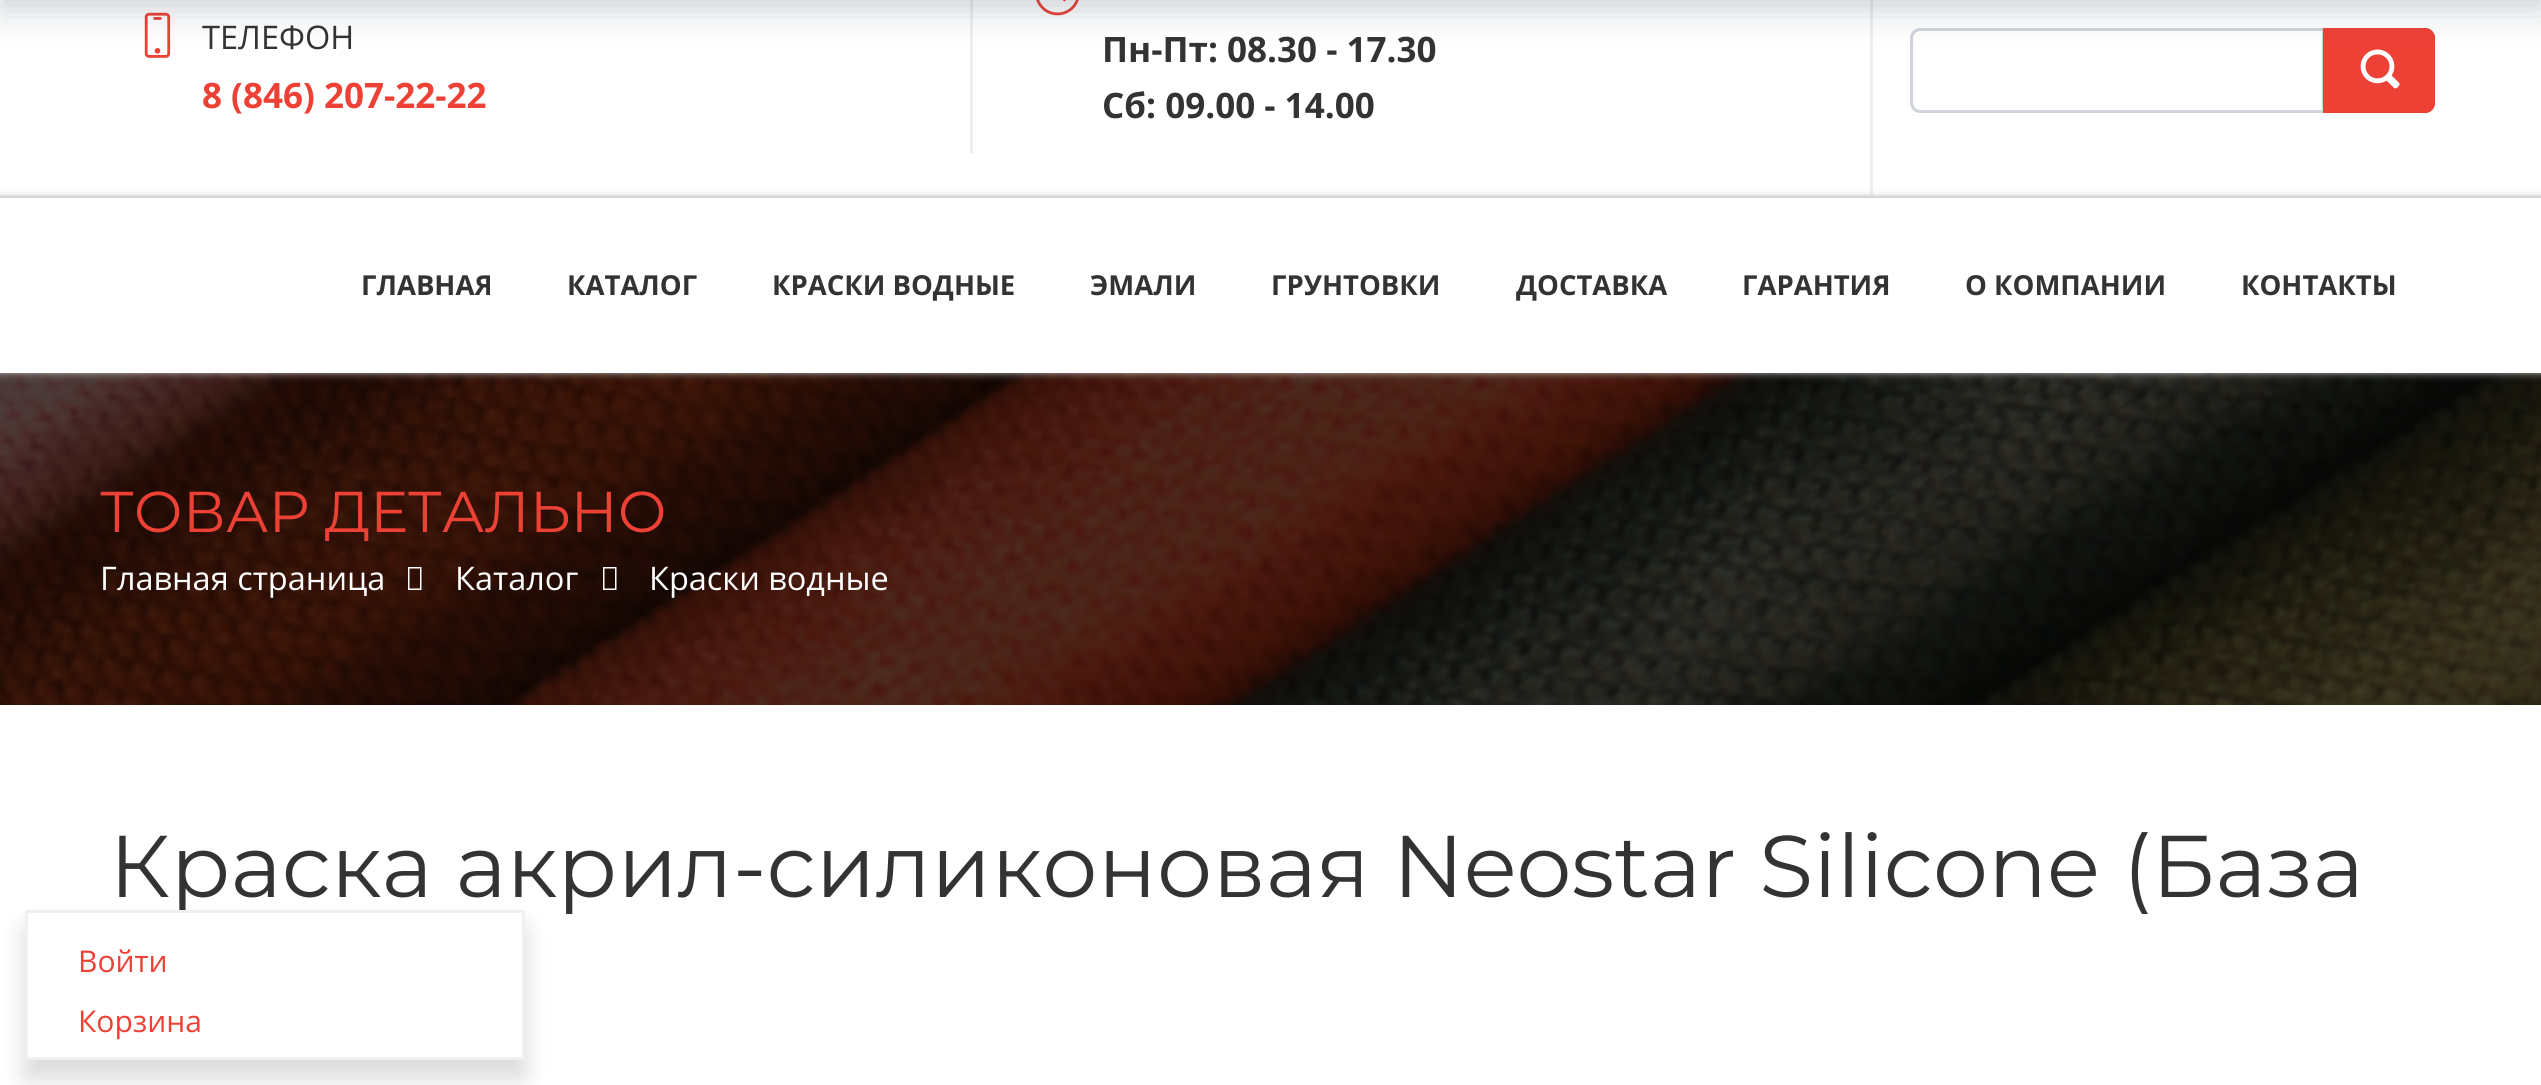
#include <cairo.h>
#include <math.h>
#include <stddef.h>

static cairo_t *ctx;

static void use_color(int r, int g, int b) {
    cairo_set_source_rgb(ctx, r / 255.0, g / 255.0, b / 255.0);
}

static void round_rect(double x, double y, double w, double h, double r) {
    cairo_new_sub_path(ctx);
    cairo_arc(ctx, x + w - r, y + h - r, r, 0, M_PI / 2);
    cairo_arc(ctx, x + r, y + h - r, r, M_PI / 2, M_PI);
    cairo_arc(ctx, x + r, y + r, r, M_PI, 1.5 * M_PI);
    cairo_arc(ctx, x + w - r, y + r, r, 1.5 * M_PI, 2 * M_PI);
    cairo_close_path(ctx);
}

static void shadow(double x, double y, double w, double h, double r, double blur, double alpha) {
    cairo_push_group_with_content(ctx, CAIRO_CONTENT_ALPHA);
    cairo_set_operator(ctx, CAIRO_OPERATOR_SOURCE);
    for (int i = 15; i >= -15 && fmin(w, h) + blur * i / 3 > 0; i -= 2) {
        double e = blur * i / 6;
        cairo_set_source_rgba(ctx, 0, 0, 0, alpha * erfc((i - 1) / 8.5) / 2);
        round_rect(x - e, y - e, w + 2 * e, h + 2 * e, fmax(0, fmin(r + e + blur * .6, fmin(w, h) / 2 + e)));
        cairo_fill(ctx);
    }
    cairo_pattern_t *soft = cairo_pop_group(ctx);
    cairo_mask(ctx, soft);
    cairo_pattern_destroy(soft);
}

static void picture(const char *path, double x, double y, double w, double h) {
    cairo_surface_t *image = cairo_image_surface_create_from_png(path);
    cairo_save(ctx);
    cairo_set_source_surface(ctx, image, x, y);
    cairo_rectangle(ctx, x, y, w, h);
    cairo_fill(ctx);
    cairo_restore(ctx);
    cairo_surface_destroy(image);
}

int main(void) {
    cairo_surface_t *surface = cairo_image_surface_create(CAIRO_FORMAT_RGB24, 2541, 1085);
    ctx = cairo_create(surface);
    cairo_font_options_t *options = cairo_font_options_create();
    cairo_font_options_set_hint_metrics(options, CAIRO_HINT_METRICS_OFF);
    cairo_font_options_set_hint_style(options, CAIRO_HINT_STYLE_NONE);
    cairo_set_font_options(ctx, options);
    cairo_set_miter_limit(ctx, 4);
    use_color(255, 255, 255);
    cairo_paint(ctx);
    use_color(238, 238, 238);
    cairo_rectangle(ctx, 0, 195, 2541, 3);
    cairo_fill(ctx);
    cairo_rectangle(ctx, 970, 0, 3, 153);
    cairo_fill(ctx);
    picture("img1.png", 144, 12, 27, 46);
    cairo_select_font_face(ctx, "Open Sans", CAIRO_FONT_SLANT_NORMAL, CAIRO_FONT_WEIGHT_NORMAL);
    cairo_set_font_size(ctx, 32.5);
    use_color(51, 51, 51);
    cairo_move_to(ctx, 202, 49);
    cairo_show_text(ctx, "ТЕЛЕФОН");
    cairo_select_font_face(ctx, "Open Sans", CAIRO_FONT_SLANT_NORMAL, CAIRO_FONT_WEIGHT_BOLD);
    cairo_set_font_size(ctx, 35);
    use_color(238, 65, 54);
    cairo_move_to(ctx, 202, 108);
    cairo_show_text(ctx, "8 (846) 207-22-22");
    use_color(238, 238, 238);
    cairo_rectangle(ctx, 1870, 0, 3, 195);
    cairo_fill(ctx);
    picture("img2.png", 1036, 0, 43, 16);
    use_color(51, 51, 51);
    cairo_move_to(ctx, 1102, 62);
    cairo_show_text(ctx, "Пн-Пт: 08.30 - 17.30");
    cairo_move_to(ctx, 1102, 118);
    cairo_show_text(ctx, "Сб: 09.00 - 14.00");
    cairo_new_path(ctx);
    cairo_move_to(ctx, 1920, 29.5);
    cairo_line_to(ctx, 2323.5, 29.5);
    cairo_line_to(ctx, 2323.5, 111.5);
    cairo_line_to(ctx, 1920, 111.5);
    cairo_curve_to(ctx, 1915.5, 111.5, 1911.5, 107.5, 1911.5, 103);
    cairo_line_to(ctx, 1911.5, 38);
    cairo_curve_to(ctx, 1911.5, 33.5, 1915.5, 29.5, 1920, 29.5);
    cairo_close_path(ctx);
    use_color(206, 212, 218);
    cairo_set_line_width(ctx, 3);
    cairo_stroke(ctx);
    use_color(238, 65, 54);
    cairo_new_path(ctx);
    cairo_move_to(ctx, 2323, 28);
    cairo_line_to(ctx, 2425, 28);
    cairo_curve_to(ctx, 2430.5, 28, 2435, 32.5, 2435, 38);
    cairo_line_to(ctx, 2435, 103);
    cairo_curve_to(ctx, 2435, 108.5, 2430.5, 113, 2425, 113);
    cairo_line_to(ctx, 2323, 113);
    cairo_close_path(ctx);
    cairo_fill(ctx);
    picture("img3.png", 2360, 49, 40, 40);
    cairo_new_path(ctx);
    cairo_move_to(ctx, 2324.5, 29.5);
    cairo_line_to(ctx, 2425, 29.5);
    cairo_curve_to(ctx, 2429.5, 29.5, 2433.5, 33.5, 2433.5, 38);
    cairo_line_to(ctx, 2433.5, 103);
    cairo_curve_to(ctx, 2433.5, 107.5, 2429.5, 111.5, 2425, 111.5);
    cairo_line_to(ctx, 2324.5, 111.5);
    cairo_close_path(ctx);
    cairo_stroke(ctx);
    picture("img4.png", 0, 373, 2541, 332);
    cairo_save(ctx);
    cairo_set_fill_rule(ctx, CAIRO_FILL_RULE_EVEN_ODD);
    cairo_new_path(ctx);
    cairo_move_to(ctx, 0, 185);
    cairo_line_to(ctx, 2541, 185);
    cairo_line_to(ctx, 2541, 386);
    cairo_line_to(ctx, 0, 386);
    cairo_close_path(ctx);
    cairo_move_to(ctx, 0, 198);
    cairo_line_to(ctx, 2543, 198);
    cairo_line_to(ctx, 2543, 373);
    cairo_line_to(ctx, 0, 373);
    cairo_close_path(ctx);
    cairo_clip(ctx);
    use_color(181, 181, 181);
    shadow(0, 198, 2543, 175, 0, 4, 1);
    cairo_restore(ctx);
    cairo_set_font_size(ctx, 27.5);
    use_color(51, 51, 51);
    cairo_move_to(ctx, 361, 295);
    cairo_show_text(ctx, "ГЛАВНАЯ");
    cairo_move_to(ctx, 567, 295);
    cairo_show_text(ctx, "КАТАЛОГ");
    cairo_move_to(ctx, 772, 295);
    cairo_show_text(ctx, "КРАСКИ ВОДНЫЕ");
    cairo_move_to(ctx, 1090, 295);
    cairo_show_text(ctx, "ЭМАЛИ");
    cairo_move_to(ctx, 1271, 295);
    cairo_show_text(ctx, "ГРУНТОВКИ");
    cairo_move_to(ctx, 1516, 295);
    cairo_show_text(ctx, "ДОСТАВКА");
    cairo_move_to(ctx, 1742, 295);
    cairo_show_text(ctx, "ГАРАНТИЯ");
    cairo_move_to(ctx, 1965, 295);
    cairo_show_text(ctx, "О КОМПАНИИ");
    cairo_move_to(ctx, 2241, 295);
    cairo_show_text(ctx, "КОНТАКТЫ");
    cairo_select_font_face(ctx, "Montserrat", CAIRO_FONT_SLANT_NORMAL, CAIRO_FONT_WEIGHT_NORMAL);
    cairo_set_font_size(ctx, 57.5);
    use_color(238, 65, 54);
    cairo_move_to(ctx, 100, 532);
    cairo_show_text(ctx, "ТОВАР ДЕТАЛЬНО");
    cairo_select_font_face(ctx, "Open Sans", CAIRO_FONT_SLANT_NORMAL, CAIRO_FONT_WEIGHT_NORMAL);
    cairo_set_font_size(ctx, 32.5);
    use_color(255, 255, 255);
    cairo_move_to(ctx, 100, 590);
    cairo_show_text(ctx, "Главная страница");
    cairo_new_path(ctx);
    cairo_move_to(ctx, 408, 590);
    cairo_line_to(ctx, 408, 567);
    cairo_line_to(ctx, 421.5, 567);
    cairo_line_to(ctx, 421.5, 590);
    cairo_close_path(ctx);
    cairo_move_to(ctx, 409.5, 588.5);
    cairo_line_to(ctx, 420, 588.5);
    cairo_line_to(ctx, 420, 568.5);
    cairo_line_to(ctx, 409.5, 568.5);
    cairo_close_path(ctx);
    cairo_fill(ctx);
    cairo_move_to(ctx, 455, 590);
    cairo_show_text(ctx, "Каталог");
    cairo_new_path(ctx);
    cairo_move_to(ctx, 603, 590);
    cairo_line_to(ctx, 603, 567);
    cairo_line_to(ctx, 616.5, 567);
    cairo_line_to(ctx, 616.5, 590);
    cairo_close_path(ctx);
    cairo_move_to(ctx, 604.5, 588.5);
    cairo_line_to(ctx, 615, 588.5);
    cairo_line_to(ctx, 615, 568.5);
    cairo_line_to(ctx, 604.5, 568.5);
    cairo_close_path(ctx);
    cairo_fill(ctx);
    cairo_move_to(ctx, 649, 590);
    cairo_show_text(ctx, "Краски водные");
    use_color(32, 54, 74);
    shadow(0, -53, 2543, 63, 0, 17.5, 0.23);
    cairo_select_font_face(ctx, "Montserrat", CAIRO_FONT_SLANT_NORMAL, CAIRO_FONT_WEIGHT_NORMAL);
    cairo_set_font_size(ctx, 87.5);
    use_color(51, 51, 51);
    cairo_move_to(ctx, 109, 897);
    cairo_show_text(ctx, "Краска акрил-силиконовая Neostar Silicone (База");
    use_color(0, 0, 0);
    shadow(25, 928, 500, 150, 2.5, 12.5, 0.15);
    use_color(255, 255, 255);
    round_rect(26.5, 911.5, 497, 147, 1);
    cairo_fill_preserve(ctx);
    use_color(240, 240, 240);
    cairo_stroke(ctx);
    cairo_select_font_face(ctx, "Open Sans", CAIRO_FONT_SLANT_NORMAL, CAIRO_FONT_WEIGHT_NORMAL);
    cairo_set_font_size(ctx, 30);
    use_color(238, 65, 54);
    cairo_move_to(ctx, 78, 972);
    cairo_show_text(ctx, "Войти");
    cairo_move_to(ctx, 78, 1032);
    cairo_show_text(ctx, "Корзина");
    cairo_surface_write_to_png(surface, "result.png");
    cairo_font_options_destroy(options);
    cairo_destroy(ctx);
    cairo_surface_destroy(surface);
    return 0;
}
